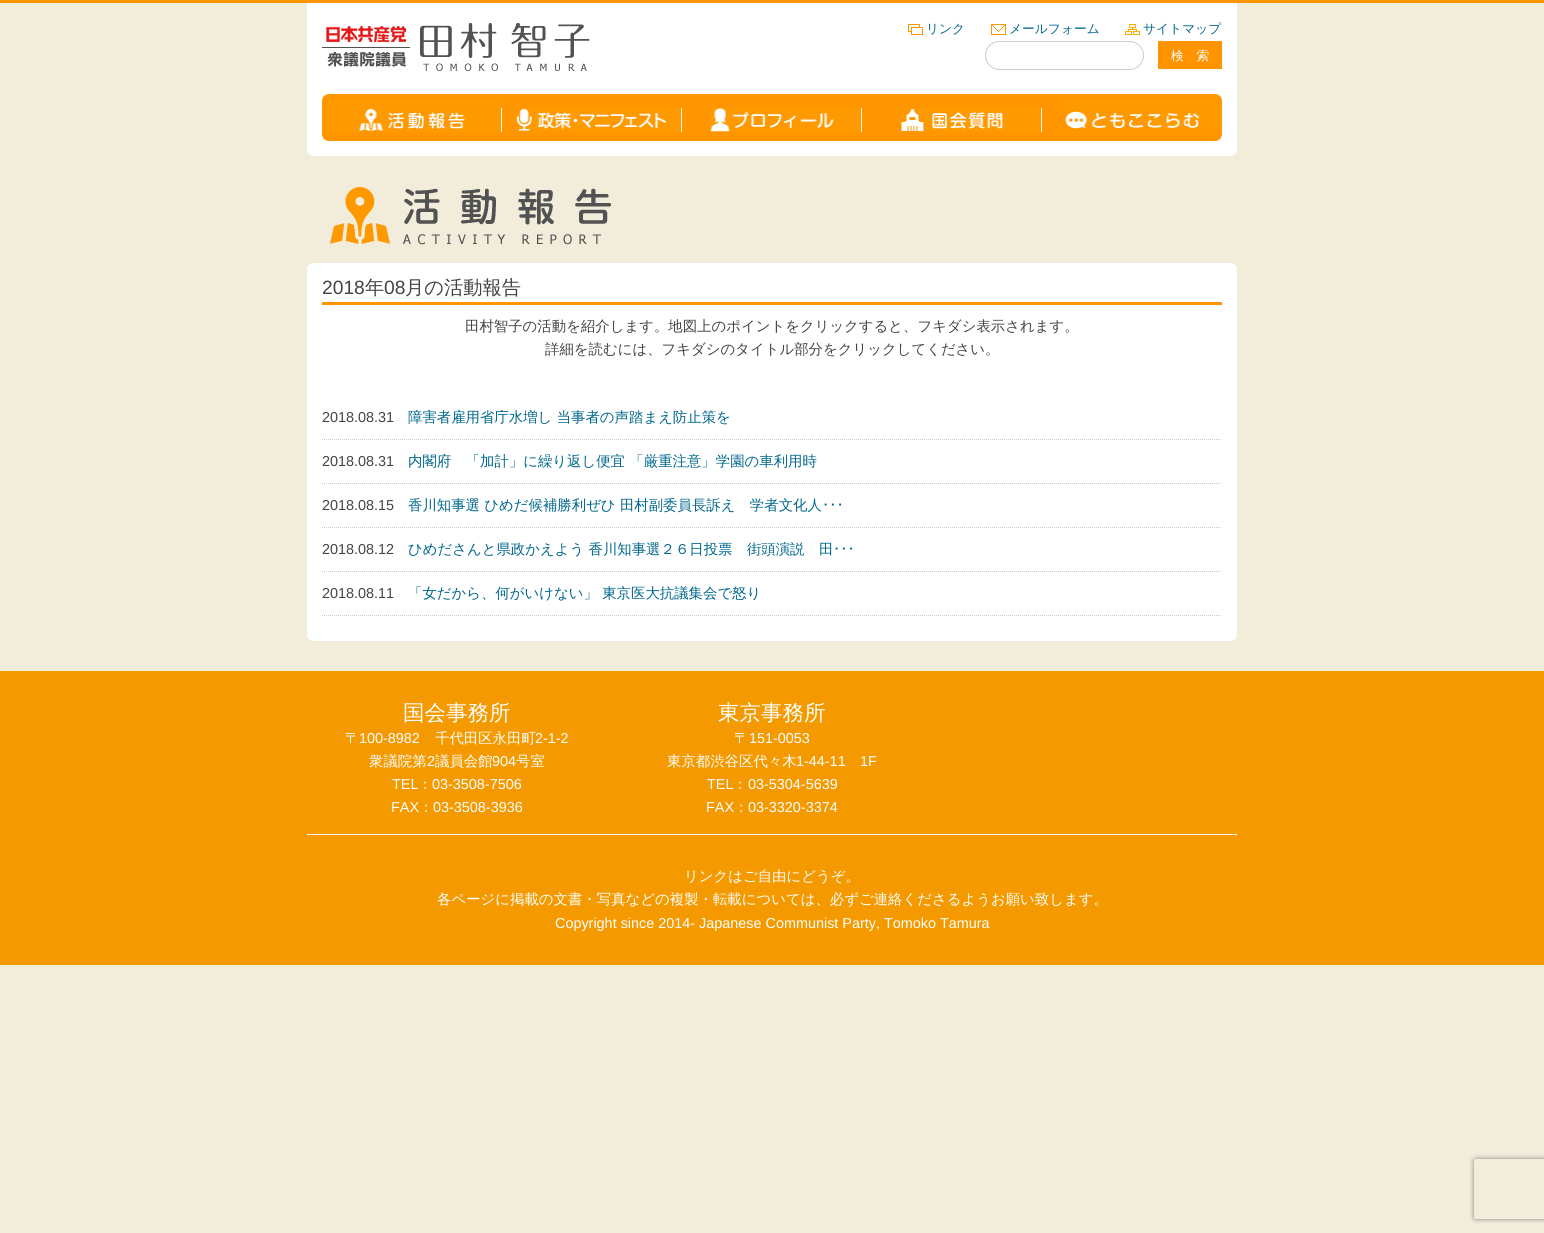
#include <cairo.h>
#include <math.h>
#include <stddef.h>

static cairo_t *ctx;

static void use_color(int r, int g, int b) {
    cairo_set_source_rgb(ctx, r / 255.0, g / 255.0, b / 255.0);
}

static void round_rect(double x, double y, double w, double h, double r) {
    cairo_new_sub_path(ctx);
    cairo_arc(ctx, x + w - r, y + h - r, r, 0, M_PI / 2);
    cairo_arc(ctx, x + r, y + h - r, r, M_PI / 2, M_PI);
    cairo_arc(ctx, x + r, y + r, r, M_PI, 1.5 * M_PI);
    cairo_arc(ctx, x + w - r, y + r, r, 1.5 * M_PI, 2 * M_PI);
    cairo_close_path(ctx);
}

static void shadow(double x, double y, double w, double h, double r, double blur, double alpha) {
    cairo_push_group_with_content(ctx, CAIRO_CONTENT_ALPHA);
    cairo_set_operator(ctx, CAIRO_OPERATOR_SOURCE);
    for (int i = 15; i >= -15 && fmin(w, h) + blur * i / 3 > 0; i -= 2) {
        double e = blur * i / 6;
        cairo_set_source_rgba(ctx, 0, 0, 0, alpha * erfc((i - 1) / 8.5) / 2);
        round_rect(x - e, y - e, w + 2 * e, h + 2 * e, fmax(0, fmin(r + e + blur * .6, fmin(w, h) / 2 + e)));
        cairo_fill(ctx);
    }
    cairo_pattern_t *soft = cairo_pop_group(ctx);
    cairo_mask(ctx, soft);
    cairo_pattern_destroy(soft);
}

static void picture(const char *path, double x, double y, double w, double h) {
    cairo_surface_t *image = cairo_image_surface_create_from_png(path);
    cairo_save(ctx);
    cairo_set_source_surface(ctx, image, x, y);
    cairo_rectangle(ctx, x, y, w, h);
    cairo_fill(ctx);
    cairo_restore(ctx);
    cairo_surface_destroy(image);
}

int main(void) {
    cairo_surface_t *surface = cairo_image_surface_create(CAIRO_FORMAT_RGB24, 1544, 1233);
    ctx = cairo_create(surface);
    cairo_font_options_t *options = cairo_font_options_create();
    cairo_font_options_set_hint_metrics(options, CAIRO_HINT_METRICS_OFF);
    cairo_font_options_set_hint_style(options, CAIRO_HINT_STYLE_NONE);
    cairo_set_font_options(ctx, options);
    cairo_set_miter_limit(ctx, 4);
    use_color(242, 236, 218);
    cairo_paint(ctx);
    use_color(255, 150, 0);
    cairo_rectangle(ctx, 0, 0, 1544, 3);
    cairo_fill(ctx);
    use_color(255, 255, 255);
    cairo_new_path(ctx);
    cairo_move_to(ctx, 307, 3);
    cairo_line_to(ctx, 1237, 3);
    cairo_line_to(ctx, 1237, 149);
    cairo_curve_to(ctx, 1237, 153, 1234, 156, 1230, 156);
    cairo_line_to(ctx, 314, 156);
    cairo_curve_to(ctx, 310, 156, 307, 153, 307, 149);
    cairo_close_path(ctx);
    cairo_fill(ctx);
    picture("img1.png", 322, 23, 268, 48);
    picture("img2.png", 908, 24, 15, 11);
    cairo_select_font_face(ctx, "WenQuanYi Zen Hei Medium", CAIRO_FONT_SLANT_NORMAL, CAIRO_FONT_WEIGHT_NORMAL);
    cairo_set_font_size(ctx, 12.75);
    use_color(0, 103, 140);
    cairo_move_to(ctx, 926, 33);
    cairo_show_text(ctx, "リンク");
    picture("img3.png", 991, 24, 15, 11);
    cairo_move_to(ctx, 1009, 33);
    cairo_show_text(ctx, "メールフォーム");
    picture("img4.png", 1125, 24, 15, 11);
    cairo_move_to(ctx, 1143, 33);
    cairo_show_text(ctx, "サイトマップ");
    round_rect(985.5, 41.5, 158, 28, 14);
    use_color(204, 204, 204);
    cairo_set_line_width(ctx, 1);
    cairo_stroke(ctx);
    use_color(255, 148, 0);
    cairo_rectangle(ctx, 1158, 41, 64, 28);
    cairo_fill(ctx);
    use_color(255, 255, 255);
    cairo_move_to(ctx, 1171, 60);
    cairo_show_text(ctx, "検　索");
    use_color(255, 150, 0);
    round_rect(322, 94, 900, 47, 7);
    cairo_fill(ctx);
    picture("img5.png", 322, 100, 180, 32);
    picture("img6.png", 516, 108, 166, 24);
    picture("img7.png", 710, 108, 152, 24);
    picture("img8.png", 901, 108, 141, 24);
    picture("img9.png", 1065, 100, 157, 29);
    picture("img10.png", 330, 187, 281, 58);
    use_color(255, 255, 255);
    round_rect(307, 263, 930, 378, 7);
    cairo_fill(ctx);
    use_color(255, 147, 0);
    cairo_rectangle(ctx, 322, 302, 900, 3);
    cairo_fill(ctx);
    cairo_select_font_face(ctx, "Liberation Sans", CAIRO_FONT_SLANT_NORMAL, CAIRO_FONT_WEIGHT_NORMAL);
    cairo_set_font_size(ctx, 19.25);
    use_color(68, 68, 68);
    cairo_move_to(ctx, 322, 294);
    cairo_show_text(ctx, "2018");
    cairo_select_font_face(ctx, "WenQuanYi Zen Hei Medium", CAIRO_FONT_SLANT_NORMAL, CAIRO_FONT_WEIGHT_NORMAL);
    cairo_move_to(ctx, 365, 294);
    cairo_show_text(ctx, "年");
    cairo_select_font_face(ctx, "Liberation Sans", CAIRO_FONT_SLANT_NORMAL, CAIRO_FONT_WEIGHT_NORMAL);
    cairo_move_to(ctx, 384, 294);
    cairo_show_text(ctx, "08");
    cairo_select_font_face(ctx, "WenQuanYi Zen Hei Medium", CAIRO_FONT_SLANT_NORMAL, CAIRO_FONT_WEIGHT_NORMAL);
    cairo_move_to(ctx, 405, 294);
    cairo_show_text(ctx, "月の活動報告");
    cairo_set_font_size(ctx, 14.4);
    cairo_move_to(ctx, 465, 331);
    cairo_show_text(ctx, "田村智子の活動を紹介します。地図上のポイントをクリックすると、フキダシ表示されます。");
    cairo_move_to(ctx, 545, 354);
    cairo_show_text(ctx, "詳細を読むには、フキダシのタイトル部分をクリックしてください。");
    cairo_new_path(ctx);
    cairo_move_to(ctx, 322, 439.5);
    cairo_line_to(ctx, 1222, 439.5);
    use_color(204, 204, 204);
    cairo_set_dash(ctx, (double[]){1, 1}, 2, 0);
    cairo_stroke(ctx);
    cairo_select_font_face(ctx, "Liberation Sans", CAIRO_FONT_SLANT_NORMAL, CAIRO_FONT_WEIGHT_NORMAL);
    use_color(68, 68, 68);
    cairo_move_to(ctx, 322, 422);
    cairo_show_text(ctx, "2018.08.31");
    cairo_select_font_face(ctx, "WenQuanYi Zen Hei Medium", CAIRO_FONT_SLANT_NORMAL, CAIRO_FONT_WEIGHT_NORMAL);
    use_color(0, 103, 140);
    cairo_move_to(ctx, 408, 422);
    cairo_show_text(ctx, "障害者雇用省庁水増し 当事者の声踏まえ防止策を");
    cairo_new_path(ctx);
    cairo_move_to(ctx, 322, 483.5);
    cairo_line_to(ctx, 1222, 483.5);
    use_color(204, 204, 204);
    cairo_stroke(ctx);
    cairo_select_font_face(ctx, "Liberation Sans", CAIRO_FONT_SLANT_NORMAL, CAIRO_FONT_WEIGHT_NORMAL);
    use_color(68, 68, 68);
    cairo_move_to(ctx, 322, 466);
    cairo_show_text(ctx, "2018.08.31");
    cairo_select_font_face(ctx, "WenQuanYi Zen Hei Medium", CAIRO_FONT_SLANT_NORMAL, CAIRO_FONT_WEIGHT_NORMAL);
    use_color(0, 103, 140);
    cairo_move_to(ctx, 408, 466);
    cairo_show_text(ctx, "内閣府　「加計」に繰り返し便宜 「厳重注意」学園の車利用時");
    cairo_new_path(ctx);
    cairo_move_to(ctx, 322, 527.5);
    cairo_line_to(ctx, 1222, 527.5);
    use_color(204, 204, 204);
    cairo_stroke(ctx);
    cairo_select_font_face(ctx, "Liberation Sans", CAIRO_FONT_SLANT_NORMAL, CAIRO_FONT_WEIGHT_NORMAL);
    use_color(68, 68, 68);
    cairo_move_to(ctx, 322, 510);
    cairo_show_text(ctx, "2018.08.15");
    cairo_select_font_face(ctx, "WenQuanYi Zen Hei Medium", CAIRO_FONT_SLANT_NORMAL, CAIRO_FONT_WEIGHT_NORMAL);
    use_color(0, 103, 140);
    cairo_move_to(ctx, 408, 510);
    cairo_show_text(ctx, "香川知事選 ひめだ候補勝利ぜひ 田村副委員長訴え　学者文化人");
    cairo_select_font_face(ctx, "IPAPGothic", CAIRO_FONT_SLANT_NORMAL, CAIRO_FONT_WEIGHT_NORMAL);
    cairo_move_to(ctx, 822, 510);
    cairo_show_text(ctx, "･･･");
    cairo_new_path(ctx);
    cairo_move_to(ctx, 322, 571.5);
    cairo_line_to(ctx, 1222, 571.5);
    use_color(204, 204, 204);
    cairo_stroke(ctx);
    cairo_select_font_face(ctx, "Liberation Sans", CAIRO_FONT_SLANT_NORMAL, CAIRO_FONT_WEIGHT_NORMAL);
    use_color(68, 68, 68);
    cairo_move_to(ctx, 322, 554);
    cairo_show_text(ctx, "2018.08.12");
    cairo_select_font_face(ctx, "WenQuanYi Zen Hei Medium", CAIRO_FONT_SLANT_NORMAL, CAIRO_FONT_WEIGHT_NORMAL);
    use_color(0, 103, 140);
    cairo_move_to(ctx, 408, 554);
    cairo_show_text(ctx, "ひめださんと県政かえよう 香川知事選２６日投票　街頭演説　田");
    cairo_select_font_face(ctx, "IPAPGothic", CAIRO_FONT_SLANT_NORMAL, CAIRO_FONT_WEIGHT_NORMAL);
    cairo_move_to(ctx, 833, 554);
    cairo_show_text(ctx, "･･･");
    cairo_new_path(ctx);
    cairo_move_to(ctx, 322, 615.5);
    cairo_line_to(ctx, 1222, 615.5);
    use_color(204, 204, 204);
    cairo_stroke(ctx);
    cairo_select_font_face(ctx, "Liberation Sans", CAIRO_FONT_SLANT_NORMAL, CAIRO_FONT_WEIGHT_NORMAL);
    use_color(68, 68, 68);
    cairo_move_to(ctx, 322, 598);
    cairo_show_text(ctx, "2018.08.11");
    cairo_select_font_face(ctx, "WenQuanYi Zen Hei Medium", CAIRO_FONT_SLANT_NORMAL, CAIRO_FONT_WEIGHT_NORMAL);
    use_color(0, 103, 140);
    cairo_move_to(ctx, 408, 598);
    cairo_show_text(ctx, "「女だから、何がいけない」 東京医大抗議集会で怒り");
    use_color(244, 154, 0);
    cairo_rectangle(ctx, 0, 671, 1544, 294);
    cairo_fill(ctx);
    cairo_set_font_size(ctx, 21.5);
    use_color(255, 255, 255);
    cairo_move_to(ctx, 403, 720);
    cairo_show_text(ctx, "国会事務所");
    cairo_set_font_size(ctx, 14.4);
    cairo_move_to(ctx, 345, 743);
    cairo_show_text(ctx, "〒");
    cairo_select_font_face(ctx, "Liberation Sans", CAIRO_FONT_SLANT_NORMAL, CAIRO_FONT_WEIGHT_NORMAL);
    cairo_move_to(ctx, 359, 743);
    cairo_show_text(ctx, "100-8982");
    cairo_select_font_face(ctx, "WenQuanYi Zen Hei Medium", CAIRO_FONT_SLANT_NORMAL, CAIRO_FONT_WEIGHT_NORMAL);
    cairo_move_to(ctx, 435, 743);
    cairo_show_text(ctx, "千代田区永田町");
    cairo_select_font_face(ctx, "Liberation Sans", CAIRO_FONT_SLANT_NORMAL, CAIRO_FONT_WEIGHT_NORMAL);
    cairo_move_to(ctx, 535, 743);
    cairo_show_text(ctx, "2-1-2");
    cairo_select_font_face(ctx, "WenQuanYi Zen Hei Medium", CAIRO_FONT_SLANT_NORMAL, CAIRO_FONT_WEIGHT_NORMAL);
    cairo_move_to(ctx, 369, 766);
    cairo_show_text(ctx, "衆議院第");
    cairo_select_font_face(ctx, "Liberation Sans", CAIRO_FONT_SLANT_NORMAL, CAIRO_FONT_WEIGHT_NORMAL);
    cairo_move_to(ctx, 427, 766);
    cairo_show_text(ctx, "2");
    cairo_select_font_face(ctx, "WenQuanYi Zen Hei Medium", CAIRO_FONT_SLANT_NORMAL, CAIRO_FONT_WEIGHT_NORMAL);
    cairo_move_to(ctx, 435, 766);
    cairo_show_text(ctx, "議員会館");
    cairo_select_font_face(ctx, "Liberation Sans", CAIRO_FONT_SLANT_NORMAL, CAIRO_FONT_WEIGHT_NORMAL);
    cairo_move_to(ctx, 492, 766);
    cairo_show_text(ctx, "904");
    cairo_select_font_face(ctx, "WenQuanYi Zen Hei Medium", CAIRO_FONT_SLANT_NORMAL, CAIRO_FONT_WEIGHT_NORMAL);
    cairo_move_to(ctx, 516, 766);
    cairo_show_text(ctx, "号室");
    cairo_select_font_face(ctx, "Liberation Sans", CAIRO_FONT_SLANT_NORMAL, CAIRO_FONT_WEIGHT_NORMAL);
    cairo_move_to(ctx, 392, 789);
    cairo_show_text(ctx, "TEL");
    cairo_select_font_face(ctx, "WenQuanYi Zen Hei Medium", CAIRO_FONT_SLANT_NORMAL, CAIRO_FONT_WEIGHT_NORMAL);
    cairo_move_to(ctx, 418, 789);
    cairo_show_text(ctx, "：");
    cairo_select_font_face(ctx, "Liberation Sans", CAIRO_FONT_SLANT_NORMAL, CAIRO_FONT_WEIGHT_NORMAL);
    cairo_move_to(ctx, 432, 789);
    cairo_show_text(ctx, "03-3508-7506");
    cairo_move_to(ctx, 391, 812);
    cairo_show_text(ctx, "FAX");
    cairo_select_font_face(ctx, "WenQuanYi Zen Hei Medium", CAIRO_FONT_SLANT_NORMAL, CAIRO_FONT_WEIGHT_NORMAL);
    cairo_move_to(ctx, 419, 812);
    cairo_show_text(ctx, "：");
    cairo_select_font_face(ctx, "Liberation Sans", CAIRO_FONT_SLANT_NORMAL, CAIRO_FONT_WEIGHT_NORMAL);
    cairo_move_to(ctx, 433, 812);
    cairo_show_text(ctx, "03-3508-3936");
    cairo_select_font_face(ctx, "WenQuanYi Zen Hei Medium", CAIRO_FONT_SLANT_NORMAL, CAIRO_FONT_WEIGHT_NORMAL);
    cairo_set_font_size(ctx, 21.5);
    cairo_move_to(ctx, 718, 720);
    cairo_show_text(ctx, "東京事務所");
    cairo_set_font_size(ctx, 14.4);
    cairo_move_to(ctx, 734, 743);
    cairo_show_text(ctx, "〒");
    cairo_select_font_face(ctx, "Liberation Sans", CAIRO_FONT_SLANT_NORMAL, CAIRO_FONT_WEIGHT_NORMAL);
    cairo_move_to(ctx, 749, 743);
    cairo_show_text(ctx, "151-0053");
    cairo_select_font_face(ctx, "WenQuanYi Zen Hei Medium", CAIRO_FONT_SLANT_NORMAL, CAIRO_FONT_WEIGHT_NORMAL);
    cairo_move_to(ctx, 667, 766);
    cairo_show_text(ctx, "東京都渋谷区代々木");
    cairo_select_font_face(ctx, "Liberation Sans", CAIRO_FONT_SLANT_NORMAL, CAIRO_FONT_WEIGHT_NORMAL);
    cairo_move_to(ctx, 796, 766);
    cairo_show_text(ctx, "1-44-11");
    cairo_move_to(ctx, 860, 766);
    cairo_show_text(ctx, "1F");
    cairo_move_to(ctx, 707, 789);
    cairo_show_text(ctx, "TEL");
    cairo_select_font_face(ctx, "WenQuanYi Zen Hei Medium", CAIRO_FONT_SLANT_NORMAL, CAIRO_FONT_WEIGHT_NORMAL);
    cairo_move_to(ctx, 733, 789);
    cairo_show_text(ctx, "：");
    cairo_select_font_face(ctx, "Liberation Sans", CAIRO_FONT_SLANT_NORMAL, CAIRO_FONT_WEIGHT_NORMAL);
    cairo_move_to(ctx, 748, 789);
    cairo_show_text(ctx, "03-5304-5639");
    cairo_move_to(ctx, 706, 812);
    cairo_show_text(ctx, "FAX");
    cairo_select_font_face(ctx, "WenQuanYi Zen Hei Medium", CAIRO_FONT_SLANT_NORMAL, CAIRO_FONT_WEIGHT_NORMAL);
    cairo_move_to(ctx, 734, 812);
    cairo_show_text(ctx, "：");
    cairo_select_font_face(ctx, "Liberation Sans", CAIRO_FONT_SLANT_NORMAL, CAIRO_FONT_WEIGHT_NORMAL);
    cairo_move_to(ctx, 748, 812);
    cairo_show_text(ctx, "03-3320-3374");
    cairo_rectangle(ctx, 307, 834, 930, 1);
    cairo_fill(ctx);
    cairo_select_font_face(ctx, "WenQuanYi Zen Hei Medium", CAIRO_FONT_SLANT_NORMAL, CAIRO_FONT_WEIGHT_NORMAL);
    cairo_move_to(ctx, 684, 881);
    cairo_show_text(ctx, "リンクはご自由にどうぞ。");
    cairo_move_to(ctx, 437, 904);
    cairo_show_text(ctx, "各ページに掲載の文書・写真などの複製・転載については、必ずご連絡くださるようお願い致します。");
    cairo_select_font_face(ctx, "Liberation Sans", CAIRO_FONT_SLANT_NORMAL, CAIRO_FONT_WEIGHT_NORMAL);
    cairo_move_to(ctx, 555, 928);
    cairo_show_text(ctx, "Copyright since 2014- Japanese Communist Party, Tomoko Tamura");
    cairo_save(ctx);
    cairo_set_fill_rule(ctx, CAIRO_FILL_RULE_EVEN_ODD);
    cairo_new_path(ctx);
    cairo_move_to(ctx, 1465, 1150);
    cairo_line_to(ctx, 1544, 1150);
    cairo_line_to(ctx, 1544, 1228);
    cairo_line_to(ctx, 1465, 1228);
    cairo_close_path(ctx);
    cairo_move_to(ctx, 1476, 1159);
    cairo_line_to(ctx, 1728, 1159);
    cairo_curve_to(ctx, 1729, 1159, 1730, 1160, 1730, 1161);
    cairo_line_to(ctx, 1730, 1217);
    cairo_curve_to(ctx, 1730, 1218, 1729, 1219, 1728, 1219);
    cairo_line_to(ctx, 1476, 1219);
    cairo_curve_to(ctx, 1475, 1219, 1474, 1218, 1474, 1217);
    cairo_line_to(ctx, 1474, 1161);
    cairo_curve_to(ctx, 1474, 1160, 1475, 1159, 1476, 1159);
    cairo_close_path(ctx);
    cairo_clip(ctx);
    use_color(128, 128, 128);
    shadow(1474, 1159, 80, 60, 2, 2.5, 1);
    cairo_restore(ctx);
    cairo_surface_write_to_png(surface, "result.png");
    cairo_font_options_destroy(options);
    cairo_destroy(ctx);
    cairo_surface_destroy(surface);
    return 0;
}
